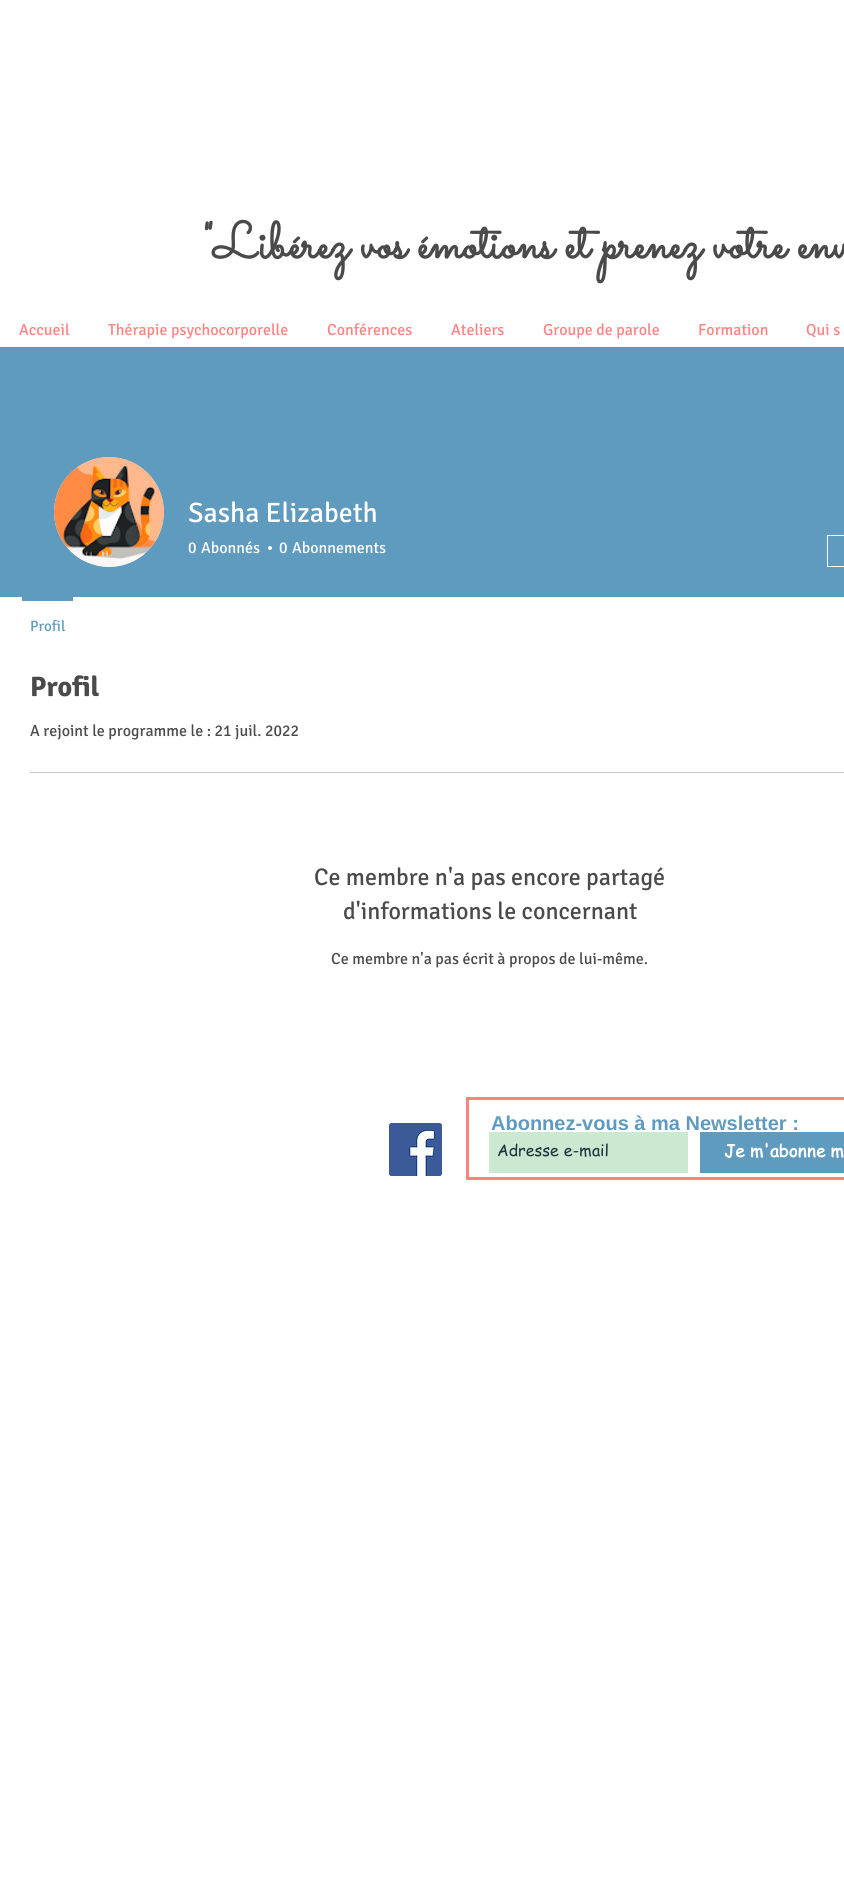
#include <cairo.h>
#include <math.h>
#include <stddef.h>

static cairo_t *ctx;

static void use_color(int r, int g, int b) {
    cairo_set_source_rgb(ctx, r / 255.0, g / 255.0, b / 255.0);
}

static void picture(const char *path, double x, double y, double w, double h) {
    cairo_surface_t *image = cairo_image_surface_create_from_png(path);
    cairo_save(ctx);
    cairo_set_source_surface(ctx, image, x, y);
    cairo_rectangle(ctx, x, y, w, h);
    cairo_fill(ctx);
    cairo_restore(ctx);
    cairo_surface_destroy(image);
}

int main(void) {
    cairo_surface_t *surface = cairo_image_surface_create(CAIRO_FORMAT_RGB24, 844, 1884);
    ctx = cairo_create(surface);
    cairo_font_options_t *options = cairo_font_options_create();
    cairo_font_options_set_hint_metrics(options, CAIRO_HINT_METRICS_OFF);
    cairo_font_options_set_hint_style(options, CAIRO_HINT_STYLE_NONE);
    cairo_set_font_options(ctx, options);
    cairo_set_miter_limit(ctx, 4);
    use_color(255, 255, 255);
    cairo_paint(ctx);
    cairo_select_font_face(ctx, "Sacramento", CAIRO_FONT_SLANT_NORMAL, CAIRO_FONT_WEIGHT_BOLD);
    cairo_set_font_size(ctx, 51);
    use_color(74, 74, 74);
    cairo_move_to(ctx, 203, 258);
    cairo_show_text(ctx, "\"Libérez vos émotions et prenez votre env");
    cairo_select_font_face(ctx, "Signika", CAIRO_FONT_SLANT_NORMAL, CAIRO_FONT_WEIGHT_NORMAL);
    cairo_set_font_size(ctx, 16);
    use_color(255, 130, 130);
    cairo_move_to(ctx, 19, 335);
    cairo_show_text(ctx, "Accueil");
    cairo_move_to(ctx, 108, 335);
    cairo_show_text(ctx, "Thérapie psychocorporelle");
    cairo_move_to(ctx, 327, 335);
    cairo_show_text(ctx, "Conférences");
    cairo_move_to(ctx, 451, 335);
    cairo_show_text(ctx, "Ateliers");
    cairo_move_to(ctx, 543, 335);
    cairo_show_text(ctx, "Groupe de parole");
    cairo_move_to(ctx, 698, 335);
    cairo_show_text(ctx, "Formation");
    cairo_move_to(ctx, 806, 335);
    cairo_show_text(ctx, "Qui s");
    use_color(95, 154, 191);
    cairo_rectangle(ctx, 0, 347, 844, 250);
    cairo_fill(ctx);
    use_color(216, 216, 216);
    cairo_arc(ctx, 109, 512, 55, 0, 2 * M_PI);
    cairo_fill(ctx);
    picture("img1.png", 54, 457, 110, 110);
    cairo_set_font_size(ctx, 28);
    use_color(255, 255, 255);
    cairo_move_to(ctx, 188, 522);
    cairo_show_text(ctx, "Sasha Elizabeth");
    cairo_set_font_size(ctx, 16);
    cairo_move_to(ctx, 188, 553);
    cairo_show_text(ctx, "0");
    cairo_move_to(ctx, 201, 553);
    cairo_show_text(ctx, "Abonnés");
    cairo_new_path(ctx);
    cairo_arc(ctx, 270, 548, 2, 0, 2 * M_PI);
    cairo_fill(ctx);
    cairo_move_to(ctx, 279, 553);
    cairo_show_text(ctx, "0");
    cairo_move_to(ctx, 292, 553);
    cairo_show_text(ctx, "Abonnements");
    cairo_rectangle(ctx, 827.5, 535.5, 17, 31);
    cairo_set_line_width(ctx, 1);
    cairo_stroke(ctx);
    use_color(95, 154, 191);
    cairo_rectangle(ctx, 22, 597, 51, 4);
    cairo_fill(ctx);
    cairo_set_font_size(ctx, 15);
    cairo_move_to(ctx, 30, 631);
    cairo_show_text(ctx, "Profil");
    cairo_select_font_face(ctx, "Signika", CAIRO_FONT_SLANT_NORMAL, CAIRO_FONT_WEIGHT_BOLD);
    cairo_set_font_size(ctx, 28);
    use_color(74, 74, 74);
    cairo_move_to(ctx, 30, 696);
    cairo_show_text(ctx, "Profil");
    cairo_select_font_face(ctx, "Signika", CAIRO_FONT_SLANT_NORMAL, CAIRO_FONT_WEIGHT_NORMAL);
    cairo_set_font_size(ctx, 16);
    cairo_move_to(ctx, 30, 736);
    cairo_show_text(ctx, "A rejoint le programme le : 21 juil. 2022");
    use_color(201, 201, 201);
    cairo_rectangle(ctx, 30, 772, 814, 1);
    cairo_fill(ctx);
    cairo_set_font_size(ctx, 24);
    use_color(74, 74, 74);
    cairo_move_to(ctx, 314, 885);
    cairo_show_text(ctx, "Ce membre n'a pas encore partagé");
    cairo_move_to(ctx, 343, 919);
    cairo_show_text(ctx, "d'informations le concernant");
    cairo_set_font_size(ctx, 16);
    cairo_move_to(ctx, 331, 964);
    cairo_show_text(ctx, "Ce membre n'a pas écrit à propos de lui-même.");
    picture("img2.png", 389, 1123, 53, 53);
    cairo_rectangle(ctx, 467.5, 1098.5, 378, 80);
    use_color(255, 130, 130);
    cairo_set_line_width(ctx, 3);
    cairo_stroke(ctx);
    cairo_select_font_face(ctx, "Liberation Sans", CAIRO_FONT_SLANT_NORMAL, CAIRO_FONT_WEIGHT_BOLD);
    cairo_set_font_size(ctx, 20);
    use_color(95, 154, 191);
    cairo_move_to(ctx, 491, 1130);
    cairo_show_text(ctx, "Abonnez-vous à ma Newsletter :");
    use_color(202, 233, 208);
    cairo_rectangle(ctx, 489, 1132, 199, 41);
    cairo_fill(ctx);
    cairo_select_font_face(ctx, "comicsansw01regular", CAIRO_FONT_SLANT_NORMAL, CAIRO_FONT_WEIGHT_NORMAL);
    cairo_set_font_size(ctx, 16);
    use_color(31, 51, 63);
    cairo_move_to(ctx, 497, 1156);
    cairo_show_text(ctx, "Adresse e-mail");
    use_color(95, 154, 191);
    cairo_rectangle(ctx, 700, 1132, 144, 41);
    cairo_fill(ctx);
    cairo_select_font_face(ctx, "comicsansw01regular", CAIRO_FONT_SLANT_NORMAL, CAIRO_FONT_WEIGHT_BOLD);
    cairo_set_font_size(ctx, 17);
    use_color(255, 255, 255);
    cairo_move_to(ctx, 724, 1157);
    cairo_show_text(ctx, "Je m'abonne m");
    cairo_surface_write_to_png(surface, "result.png");
    cairo_font_options_destroy(options);
    cairo_destroy(ctx);
    cairo_surface_destroy(surface);
    return 0;
}
